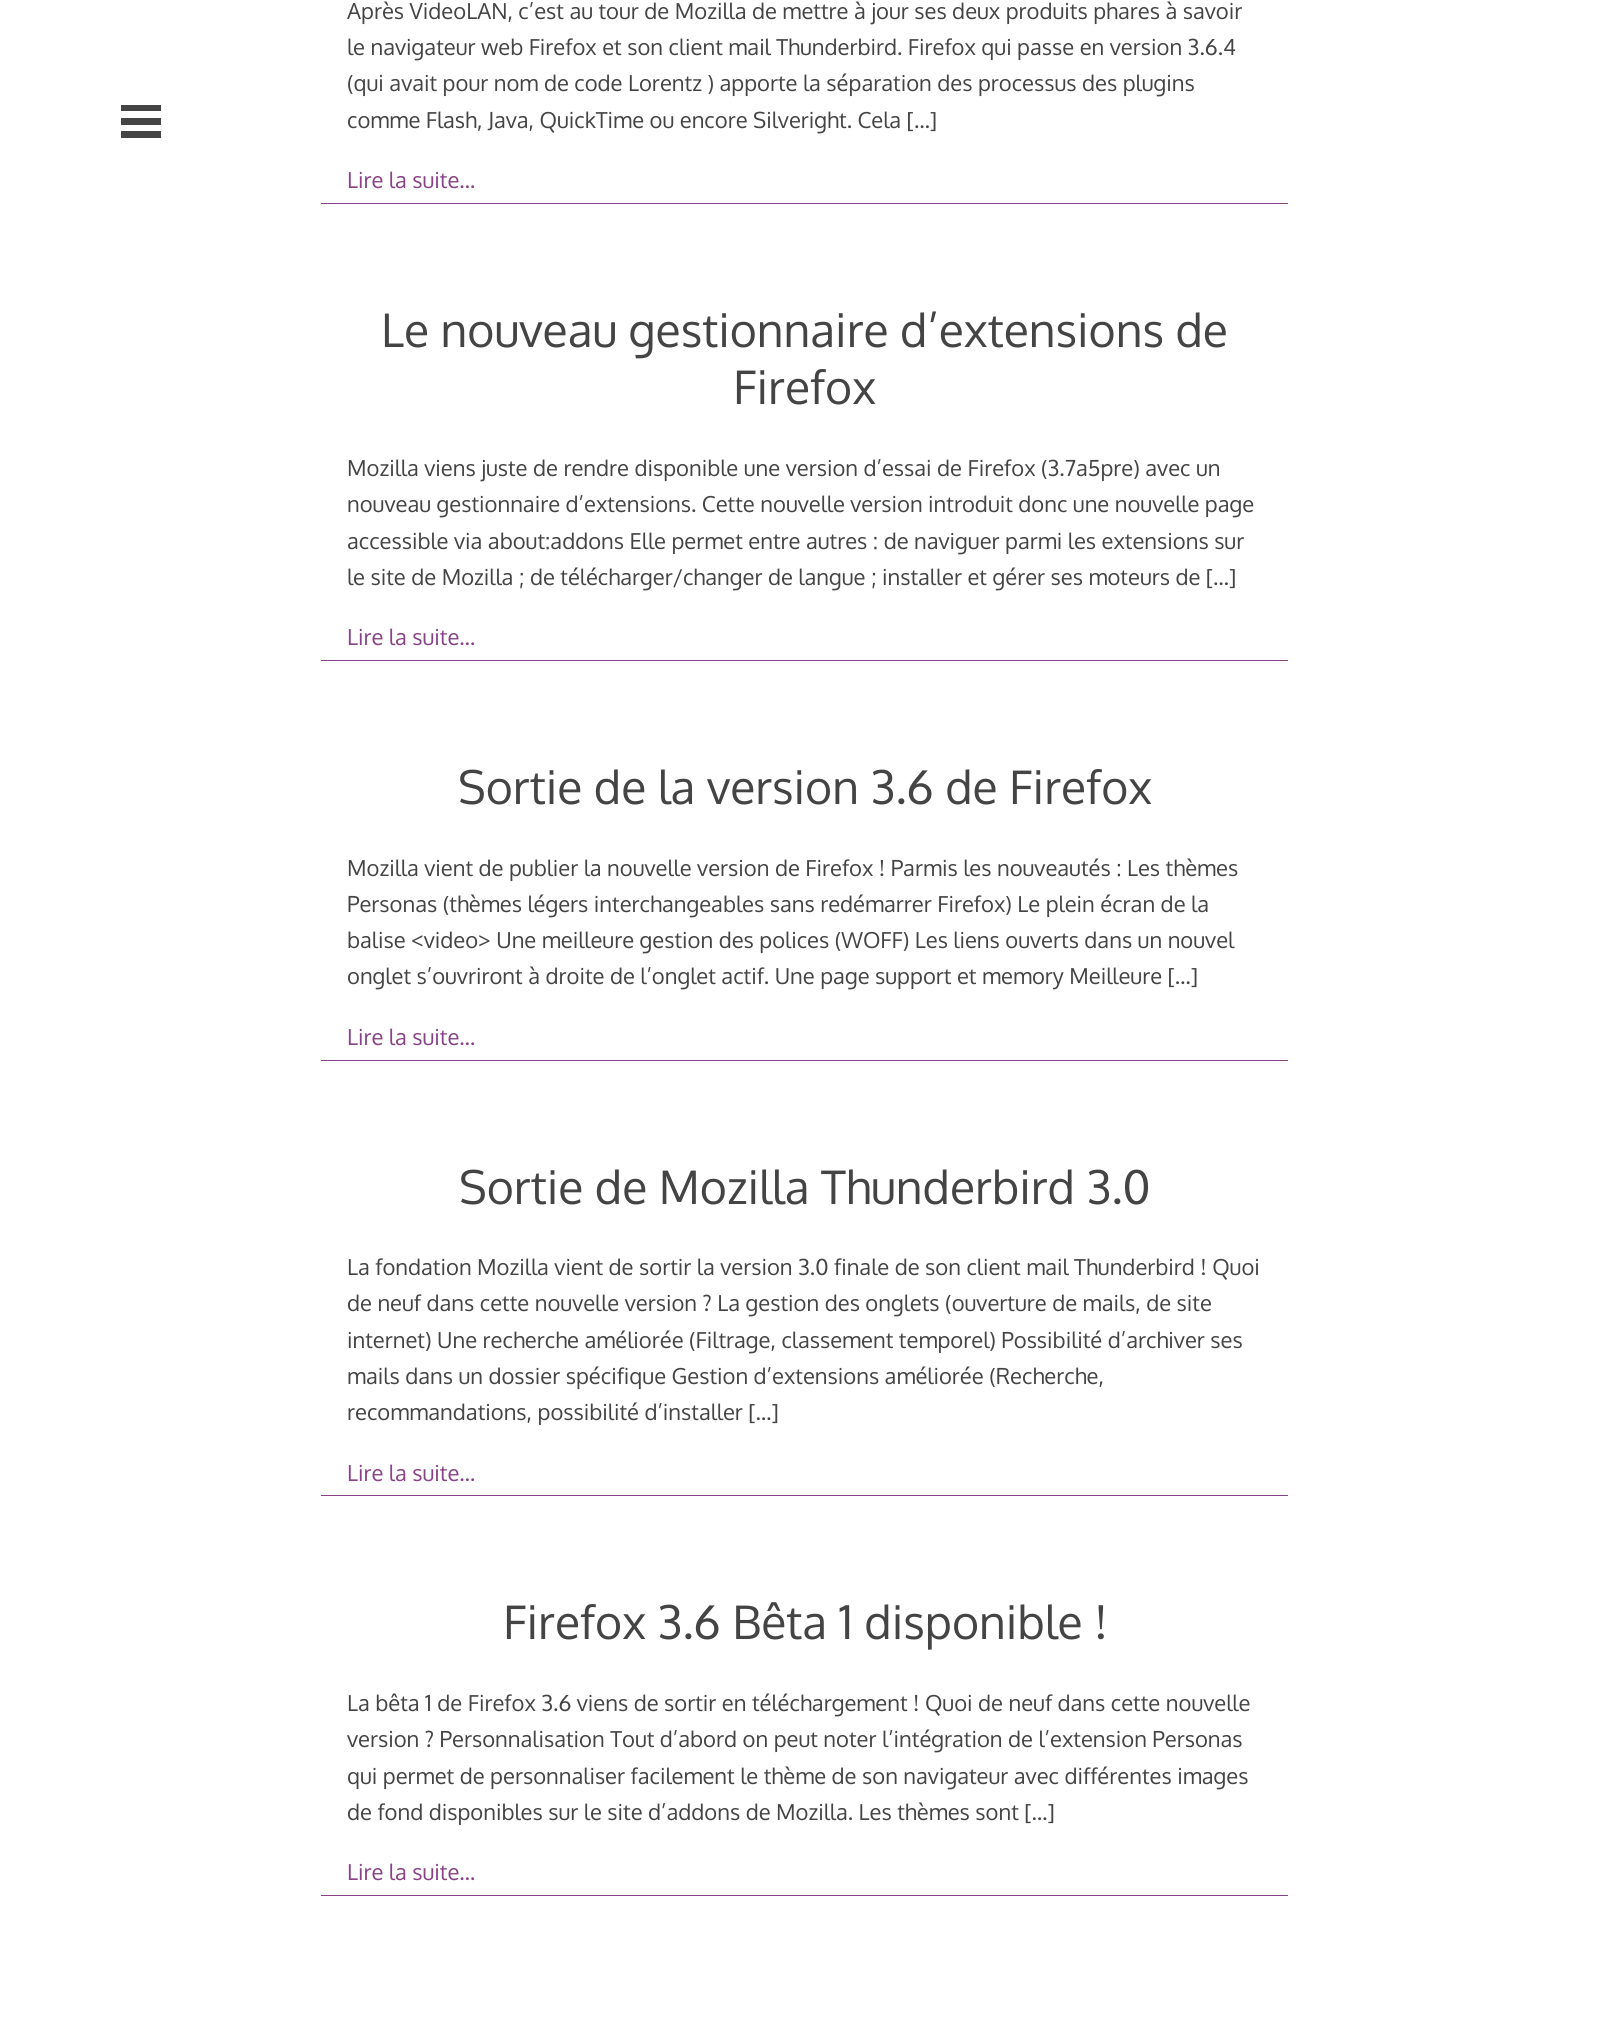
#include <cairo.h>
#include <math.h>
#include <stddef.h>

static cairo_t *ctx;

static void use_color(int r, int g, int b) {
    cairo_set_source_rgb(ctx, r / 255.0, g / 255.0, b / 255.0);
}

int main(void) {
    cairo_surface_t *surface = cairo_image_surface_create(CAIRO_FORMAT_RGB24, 1608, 2021);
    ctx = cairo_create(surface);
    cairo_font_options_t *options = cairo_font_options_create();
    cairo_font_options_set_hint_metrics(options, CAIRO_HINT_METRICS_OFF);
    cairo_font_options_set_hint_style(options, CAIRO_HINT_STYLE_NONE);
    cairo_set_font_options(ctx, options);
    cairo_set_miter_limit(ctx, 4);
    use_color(255, 255, 255);
    cairo_paint(ctx);
    use_color(68, 68, 68);
    cairo_rectangle(ctx, 121, 105, 40, 6);
    cairo_fill(ctx);
    cairo_rectangle(ctx, 121, 118, 40, 7);
    cairo_fill(ctx);
    cairo_rectangle(ctx, 121, 131, 40, 7);
    cairo_fill(ctx);
    cairo_select_font_face(ctx, "Oxygen", CAIRO_FONT_SLANT_NORMAL, CAIRO_FONT_WEIGHT_NORMAL);
    cairo_set_font_size(ctx, 22);
    cairo_move_to(ctx, 347, 19);
    cairo_show_text(ctx, "Après VideoLAN, c’est au tour de Mozilla de mettre à jour ses deux produits phares à savoir");
    cairo_move_to(ctx, 347, 55);
    cairo_show_text(ctx, "le navigateur web Firefox et son client mail Thunderbird. Firefox qui passe en version 3.6.4");
    cairo_move_to(ctx, 347, 91);
    cairo_show_text(ctx, "(qui avait pour nom de code Lorentz ) apporte la séparation des processus des plugins");
    cairo_move_to(ctx, 347, 128);
    cairo_show_text(ctx, "comme Flash, Java, QuickTime ou encore Silveright. Cela […]");
    use_color(137, 66, 136);
    cairo_rectangle(ctx, 321, 203, 967, 1);
    cairo_fill(ctx);
    cairo_move_to(ctx, 347, 188);
    cairo_show_text(ctx, "Lire la suite…");
    cairo_set_font_size(ctx, 46.25);
    use_color(68, 68, 68);
    cairo_move_to(ctx, 381, 347);
    cairo_show_text(ctx, "Le nouveau gestionnaire d’extensions de");
    cairo_move_to(ctx, 733, 404);
    cairo_show_text(ctx, "Firefox");
    cairo_set_font_size(ctx, 22);
    cairo_move_to(ctx, 347, 476);
    cairo_show_text(ctx, "Mozilla viens juste de rendre disponible une version d’essai de Firefox (3.7a5pre) avec un");
    cairo_move_to(ctx, 347, 512);
    cairo_show_text(ctx, "nouveau gestionnaire d’extensions. Cette nouvelle version introduit donc une nouvelle page");
    cairo_move_to(ctx, 347, 549);
    cairo_show_text(ctx, "accessible via about:addons Elle permet entre autres : de naviguer parmi les extensions sur");
    cairo_move_to(ctx, 347, 585);
    cairo_show_text(ctx, "le site de Mozilla ; de télécharger/changer de langue ; installer et gérer ses moteurs de […]");
    use_color(137, 66, 136);
    cairo_rectangle(ctx, 321, 660, 967, 1);
    cairo_fill(ctx);
    cairo_move_to(ctx, 347, 645);
    cairo_show_text(ctx, "Lire la suite…");
    cairo_set_font_size(ctx, 46.25);
    use_color(68, 68, 68);
    cairo_move_to(ctx, 458, 804);
    cairo_show_text(ctx, "Sortie de la version 3.6 de Firefox");
    cairo_set_font_size(ctx, 22);
    cairo_move_to(ctx, 347, 876);
    cairo_show_text(ctx, "Mozilla vient de publier la nouvelle version de Firefox ! Parmis les nouveautés : Les thèmes");
    cairo_move_to(ctx, 347, 912);
    cairo_show_text(ctx, "Personas (thèmes légers interchangeables sans redémarrer Firefox) Le plein écran de la");
    cairo_move_to(ctx, 347, 948);
    cairo_show_text(ctx, "balise <video> Une meilleure gestion des polices (WOFF) Les liens ouverts dans un nouvel");
    cairo_move_to(ctx, 347, 984);
    cairo_show_text(ctx, "onglet s’ouvriront à droite de l’onglet actif. Une page support et memory Meilleure […]");
    use_color(137, 66, 136);
    cairo_rectangle(ctx, 321, 1060, 967, 1);
    cairo_fill(ctx);
    cairo_move_to(ctx, 347, 1045);
    cairo_show_text(ctx, "Lire la suite…");
    cairo_set_font_size(ctx, 46.25);
    use_color(68, 68, 68);
    cairo_move_to(ctx, 459, 1204);
    cairo_show_text(ctx, "Sortie de Mozilla Thunderbird 3.0");
    cairo_set_font_size(ctx, 22);
    cairo_move_to(ctx, 347, 1275);
    cairo_show_text(ctx, "La fondation Mozilla vient de sortir la version 3.0 finale de son client mail Thunderbird ! Quoi");
    cairo_move_to(ctx, 347, 1311);
    cairo_show_text(ctx, "de neuf dans cette nouvelle version ? La gestion des onglets (ouverture de mails, de site");
    cairo_move_to(ctx, 347, 1348);
    cairo_show_text(ctx, "internet) Une recherche améliorée (Filtrage, classement temporel) Possibilité d’archiver ses");
    cairo_move_to(ctx, 347, 1384);
    cairo_show_text(ctx, "mails dans un dossier spécifique Gestion d’extensions améliorée (Recherche,");
    cairo_move_to(ctx, 347, 1420);
    cairo_show_text(ctx, "recommandations, possibilité d’installer […]");
    use_color(137, 66, 136);
    cairo_rectangle(ctx, 321, 1495, 967, 1);
    cairo_fill(ctx);
    cairo_move_to(ctx, 347, 1481);
    cairo_show_text(ctx, "Lire la suite…");
    cairo_set_font_size(ctx, 46.25);
    use_color(68, 68, 68);
    cairo_move_to(ctx, 503, 1639);
    cairo_show_text(ctx, "Firefox 3.6 Bêta 1 disponible !");
    cairo_set_font_size(ctx, 22);
    cairo_move_to(ctx, 347, 1711);
    cairo_show_text(ctx, "La bêta 1 de Firefox 3.6 viens de sortir en téléchargement ! Quoi de neuf dans cette nouvelle");
    cairo_move_to(ctx, 347, 1747);
    cairo_show_text(ctx, "version ? Personnalisation Tout d’abord on peut noter l’intégration de l’extension Personas");
    cairo_move_to(ctx, 347, 1784);
    cairo_show_text(ctx, "qui permet de personnaliser facilement le thème de son navigateur avec différentes images");
    cairo_move_to(ctx, 347, 1820);
    cairo_show_text(ctx, "de fond disponibles sur le site d’addons de Mozilla. Les thèmes sont […]");
    use_color(137, 66, 136);
    cairo_rectangle(ctx, 321, 1895, 967, 1);
    cairo_fill(ctx);
    cairo_move_to(ctx, 347, 1880);
    cairo_show_text(ctx, "Lire la suite…");
    cairo_surface_write_to_png(surface, "result.png");
    cairo_font_options_destroy(options);
    cairo_destroy(ctx);
    cairo_surface_destroy(surface);
    return 0;
}
